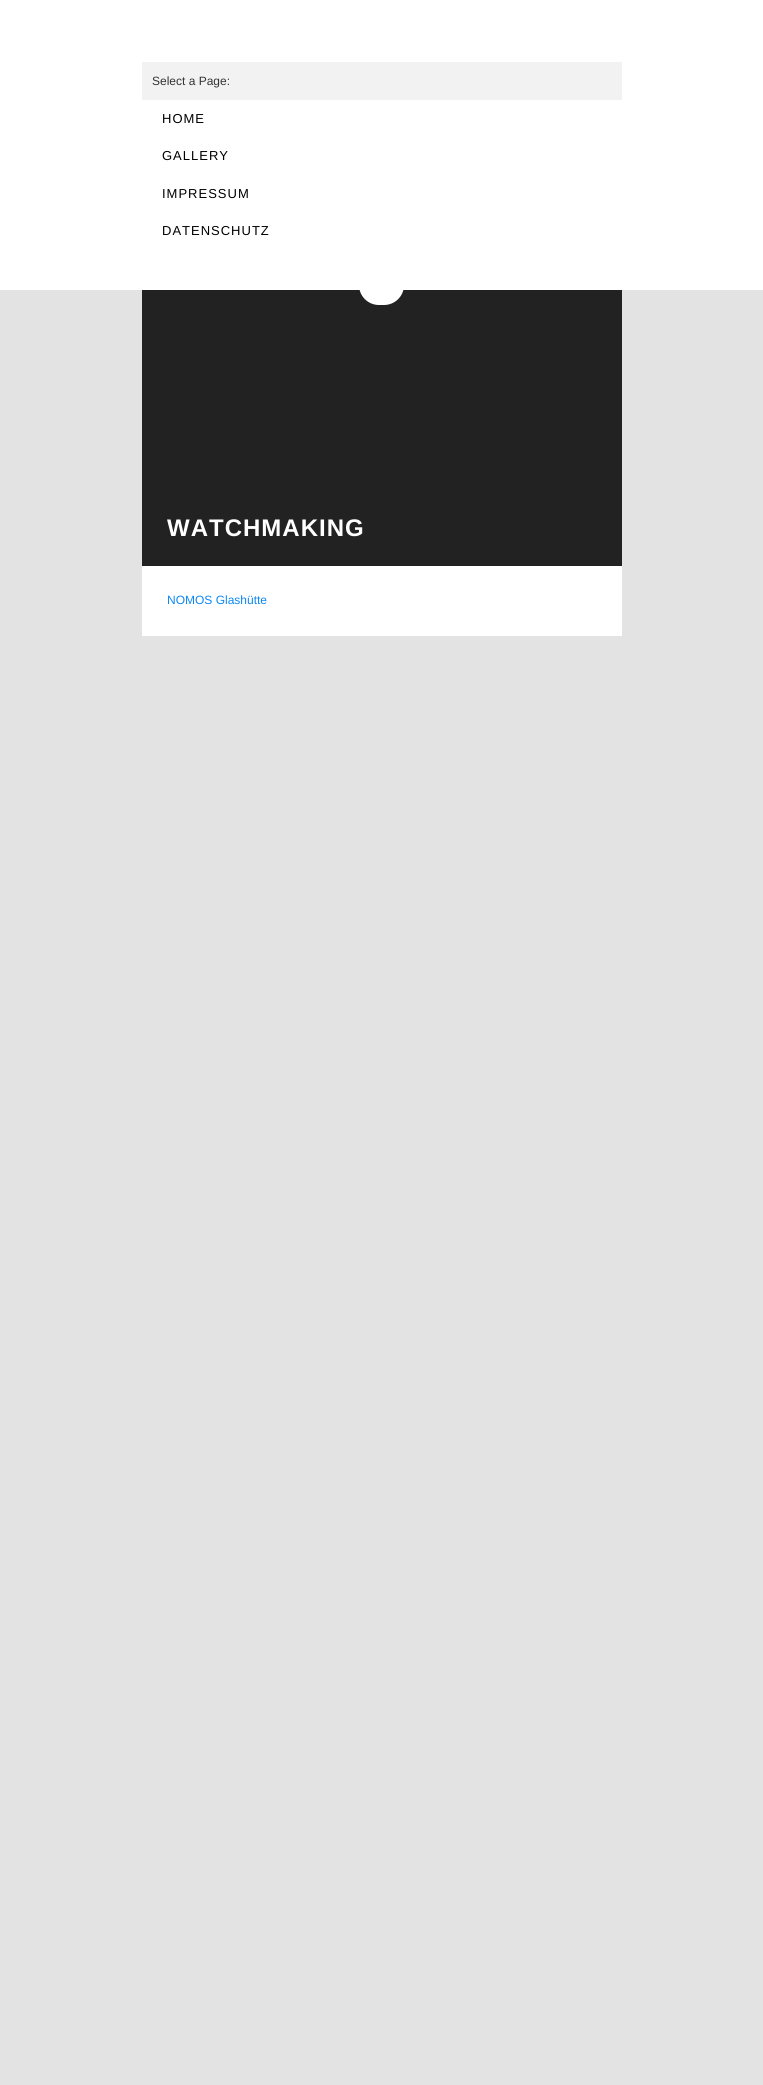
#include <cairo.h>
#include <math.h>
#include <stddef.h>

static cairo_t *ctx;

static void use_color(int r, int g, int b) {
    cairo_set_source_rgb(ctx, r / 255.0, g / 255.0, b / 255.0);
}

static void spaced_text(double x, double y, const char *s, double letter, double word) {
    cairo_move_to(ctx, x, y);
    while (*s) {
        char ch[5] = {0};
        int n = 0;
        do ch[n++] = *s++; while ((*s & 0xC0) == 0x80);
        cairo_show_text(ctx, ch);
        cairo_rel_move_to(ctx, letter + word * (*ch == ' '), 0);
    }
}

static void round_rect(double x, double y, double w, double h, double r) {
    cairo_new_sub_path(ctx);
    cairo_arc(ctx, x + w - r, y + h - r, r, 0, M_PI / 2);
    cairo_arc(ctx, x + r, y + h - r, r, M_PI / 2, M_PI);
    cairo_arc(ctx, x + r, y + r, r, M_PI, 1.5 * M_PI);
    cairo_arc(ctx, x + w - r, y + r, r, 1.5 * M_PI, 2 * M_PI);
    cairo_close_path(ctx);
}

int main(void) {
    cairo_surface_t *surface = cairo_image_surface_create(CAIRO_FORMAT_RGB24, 763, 2085);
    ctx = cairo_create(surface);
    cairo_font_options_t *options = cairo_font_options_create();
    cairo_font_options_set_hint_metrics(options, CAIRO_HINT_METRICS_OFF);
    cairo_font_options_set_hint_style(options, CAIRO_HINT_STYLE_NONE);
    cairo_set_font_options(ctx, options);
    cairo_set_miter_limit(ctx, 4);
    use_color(227, 227, 227);
    cairo_paint(ctx);
    use_color(255, 255, 255);
    cairo_rectangle(ctx, 0, 0, 763, 290);
    cairo_fill(ctx);
    use_color(242, 242, 242);
    cairo_rectangle(ctx, 142, 62, 480, 38);
    cairo_fill(ctx);
    cairo_select_font_face(ctx, "Liberation Sans", CAIRO_FONT_SLANT_NORMAL, CAIRO_FONT_WEIGHT_NORMAL);
    cairo_set_font_size(ctx, 12);
    use_color(51, 51, 51);
    cairo_move_to(ctx, 152, 85);
    cairo_show_text(ctx, "Select a Page:");
    cairo_set_font_size(ctx, 13);
    use_color(0, 0, 0);
    spaced_text(162, 123, "HOME", 1, 0);
    spaced_text(162, 160, "GALLERY", 1, 0);
    spaced_text(162, 198, "IMPRESSUM", 1, 0);
    spaced_text(162, 235, "DATENSCHUTZ", 1, 0);
    use_color(34, 34, 34);
    cairo_rectangle(ctx, 142, 290, 480, 276);
    cairo_fill(ctx);
    use_color(255, 255, 255);
    round_rect(359, 250, 45, 55, 20);
    cairo_fill(ctx);
    cairo_select_font_face(ctx, "Liberation Sans", CAIRO_FONT_SLANT_NORMAL, CAIRO_FONT_WEIGHT_BOLD);
    cairo_set_font_size(ctx, 24);
    spaced_text(167, 536, "WATCHMAKING", 1, 0);
    cairo_rectangle(ctx, 142, 566, 480, 70);
    cairo_fill(ctx);
    cairo_select_font_face(ctx, "Liberation Sans", CAIRO_FONT_SLANT_NORMAL, CAIRO_FONT_WEIGHT_NORMAL);
    cairo_set_font_size(ctx, 12);
    use_color(12, 135, 242);
    cairo_move_to(ctx, 167, 604);
    cairo_show_text(ctx, "NOMOS Glashütte");
    cairo_surface_write_to_png(surface, "result.png");
    cairo_font_options_destroy(options);
    cairo_destroy(ctx);
    cairo_surface_destroy(surface);
    return 0;
}
